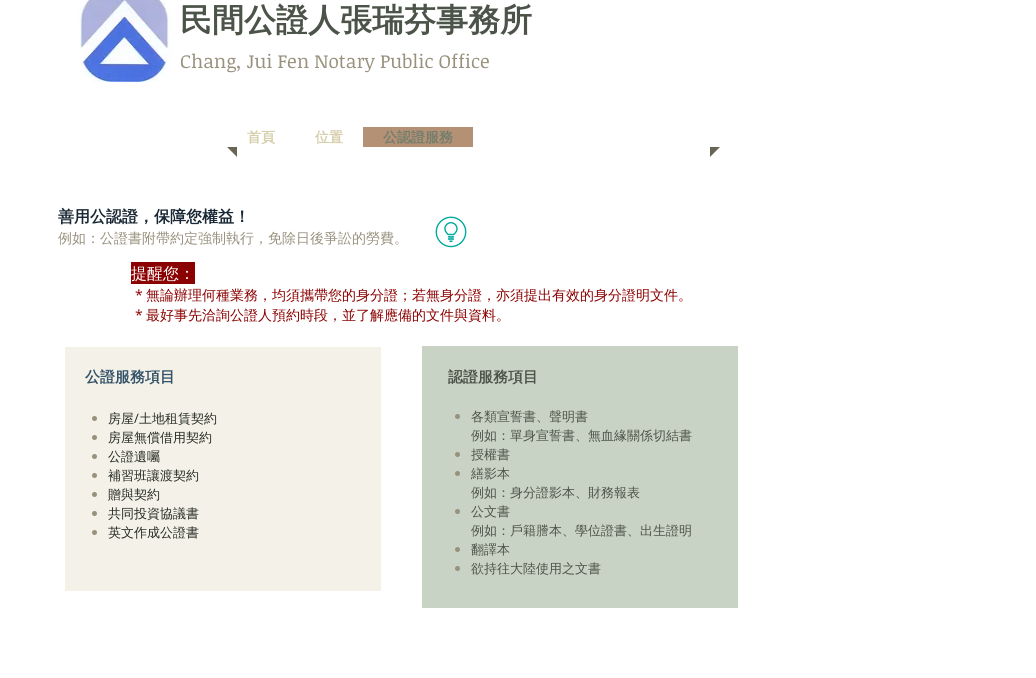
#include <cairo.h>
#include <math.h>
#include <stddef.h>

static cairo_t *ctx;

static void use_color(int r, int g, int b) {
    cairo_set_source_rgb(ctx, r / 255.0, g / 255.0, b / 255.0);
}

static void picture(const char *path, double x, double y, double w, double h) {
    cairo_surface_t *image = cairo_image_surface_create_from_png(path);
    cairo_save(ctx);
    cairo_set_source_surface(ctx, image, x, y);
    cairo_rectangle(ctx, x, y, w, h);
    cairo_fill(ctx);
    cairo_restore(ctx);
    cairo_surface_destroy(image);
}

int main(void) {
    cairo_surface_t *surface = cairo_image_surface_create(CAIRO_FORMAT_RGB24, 1036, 678);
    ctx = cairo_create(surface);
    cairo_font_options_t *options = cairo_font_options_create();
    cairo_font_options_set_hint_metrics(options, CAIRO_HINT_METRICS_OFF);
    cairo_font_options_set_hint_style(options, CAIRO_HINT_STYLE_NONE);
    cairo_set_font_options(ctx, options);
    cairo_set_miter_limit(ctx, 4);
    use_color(255, 255, 255);
    cairo_paint(ctx);
    picture("img1.png", 79, 0, 93, 82);
    cairo_select_font_face(ctx, "WenQuanYi Zen Hei", CAIRO_FONT_SLANT_NORMAL, CAIRO_FONT_WEIGHT_BOLD);
    cairo_set_font_size(ctx, 32);
    use_color(76, 84, 73);
    cairo_move_to(ctx, 180, 31);
    cairo_show_text(ctx, "民間公證人張瑞芬事務所");
    cairo_select_font_face(ctx, "Noticia Text", CAIRO_FONT_SLANT_NORMAL, CAIRO_FONT_WEIGHT_NORMAL);
    cairo_set_font_size(ctx, 19);
    use_color(151, 145, 125);
    cairo_move_to(ctx, 180, 68);
    cairo_show_text(ctx, "Chang, Jui Fen Notary Public Office");
    cairo_select_font_face(ctx, "WenQuanYi Zen Hei", CAIRO_FONT_SLANT_NORMAL, CAIRO_FONT_WEIGHT_BOLD);
    cairo_set_font_size(ctx, 14);
    use_color(214, 205, 171);
    cairo_move_to(ctx, 247, 142);
    cairo_show_text(ctx, "首頁");
    cairo_move_to(ctx, 315, 142);
    cairo_show_text(ctx, "位置");
    use_color(180, 144, 116);
    cairo_rectangle(ctx, 363, 127, 110, 20);
    cairo_fill(ctx);
    use_color(114, 126, 109);
    cairo_move_to(ctx, 383, 142);
    cairo_show_text(ctx, "公認證服務");
    use_color(105, 101, 84);
    cairo_new_path(ctx);
    cairo_move_to(ctx, 227, 147);
    cairo_line_to(ctx, 237, 147);
    cairo_line_to(ctx, 237, 157);
    cairo_close_path(ctx);
    cairo_fill(ctx);
    cairo_new_path(ctx);
    cairo_move_to(ctx, 710, 147);
    cairo_line_to(ctx, 720, 147);
    cairo_line_to(ctx, 710, 157);
    cairo_close_path(ctx);
    cairo_fill(ctx);
    cairo_set_font_size(ctx, 16);
    use_color(25, 40, 52);
    cairo_move_to(ctx, 58, 222);
    cairo_show_text(ctx, "善用公認證，保障您權益！");
    cairo_select_font_face(ctx, "WenQuanYi Zen Hei Medium", CAIRO_FONT_SLANT_NORMAL, CAIRO_FONT_WEIGHT_NORMAL);
    cairo_set_font_size(ctx, 14);
    use_color(151, 145, 125);
    cairo_move_to(ctx, 58, 243);
    cairo_show_text(ctx, "例如：公證書附帶約定強制執行，免除日後爭訟的勞費。");
    picture("img2.png", 435, 216, 32, 32);
    use_color(139, 0, 0);
    cairo_rectangle(ctx, 131, 262, 64, 22);
    cairo_fill(ctx);
    cairo_set_font_size(ctx, 16);
    use_color(255, 255, 255);
    cairo_move_to(ctx, 131, 279);
    cairo_show_text(ctx, "提醒您：");
    cairo_select_font_face(ctx, "Open Sans", CAIRO_FONT_SLANT_NORMAL, CAIRO_FONT_WEIGHT_NORMAL);
    cairo_set_font_size(ctx, 14);
    use_color(139, 0, 0);
    cairo_move_to(ctx, 135, 300);
    cairo_show_text(ctx, "*");
    cairo_select_font_face(ctx, "WenQuanYi Zen Hei Medium", CAIRO_FONT_SLANT_NORMAL, CAIRO_FONT_WEIGHT_NORMAL);
    cairo_move_to(ctx, 146, 300);
    cairo_show_text(ctx, "無論辦理何種業務，均須攜帶您的身分證；若無身分證，亦須提出有效的身分證明文件。");
    cairo_select_font_face(ctx, "Open Sans", CAIRO_FONT_SLANT_NORMAL, CAIRO_FONT_WEIGHT_NORMAL);
    cairo_move_to(ctx, 135, 320);
    cairo_show_text(ctx, "*");
    cairo_select_font_face(ctx, "WenQuanYi Zen Hei Medium", CAIRO_FONT_SLANT_NORMAL, CAIRO_FONT_WEIGHT_NORMAL);
    cairo_move_to(ctx, 146, 320);
    cairo_show_text(ctx, "最好事先洽詢公證人預約時段，並了解應備的文件與資料。");
    use_color(244, 242, 232);
    cairo_rectangle(ctx, 65, 347, 316, 244);
    cairo_fill(ctx);
    cairo_select_font_face(ctx, "WenQuanYi Zen Hei", CAIRO_FONT_SLANT_NORMAL, CAIRO_FONT_WEIGHT_BOLD);
    cairo_set_font_size(ctx, 15);
    use_color(51, 81, 104);
    cairo_move_to(ctx, 85, 382);
    cairo_show_text(ctx, "公證服務項目");
    use_color(151, 145, 125);
    cairo_new_path(ctx);
    cairo_arc(ctx, 94.5, 418.5, 2.5, 0, 2 * M_PI);
    cairo_fill(ctx);
    cairo_select_font_face(ctx, "WenQuanYi Zen Hei Medium", CAIRO_FONT_SLANT_NORMAL, CAIRO_FONT_WEIGHT_NORMAL);
    cairo_set_font_size(ctx, 13);
    use_color(38, 42, 36);
    cairo_move_to(ctx, 108, 423);
    cairo_show_text(ctx, "房屋");
    cairo_select_font_face(ctx, "Open Sans", CAIRO_FONT_SLANT_NORMAL, CAIRO_FONT_WEIGHT_NORMAL);
    cairo_move_to(ctx, 134, 423);
    cairo_show_text(ctx, "/");
    cairo_select_font_face(ctx, "WenQuanYi Zen Hei Medium", CAIRO_FONT_SLANT_NORMAL, CAIRO_FONT_WEIGHT_NORMAL);
    cairo_move_to(ctx, 139, 423);
    cairo_show_text(ctx, "土地租賃契約");
    use_color(151, 145, 125);
    cairo_new_path(ctx);
    cairo_arc(ctx, 94.5, 437.5, 2.5, 0, 2 * M_PI);
    cairo_fill(ctx);
    use_color(38, 42, 36);
    cairo_move_to(ctx, 108, 442);
    cairo_show_text(ctx, "房屋無償借用契約");
    use_color(151, 145, 125);
    cairo_new_path(ctx);
    cairo_arc(ctx, 94.5, 456.5, 2.5, 0, 2 * M_PI);
    cairo_fill(ctx);
    use_color(38, 42, 36);
    cairo_move_to(ctx, 108, 461);
    cairo_show_text(ctx, "公證遺囑");
    use_color(151, 145, 125);
    cairo_new_path(ctx);
    cairo_arc(ctx, 94.5, 475.5, 2.5, 0, 2 * M_PI);
    cairo_fill(ctx);
    use_color(38, 42, 36);
    cairo_move_to(ctx, 108, 480);
    cairo_show_text(ctx, "補習班讓渡契約");
    use_color(151, 145, 125);
    cairo_new_path(ctx);
    cairo_arc(ctx, 94.5, 494.5, 2.5, 0, 2 * M_PI);
    cairo_fill(ctx);
    use_color(38, 42, 36);
    cairo_move_to(ctx, 108, 499);
    cairo_show_text(ctx, "贈與契約");
    use_color(151, 145, 125);
    cairo_new_path(ctx);
    cairo_arc(ctx, 94.5, 513.5, 2.5, 0, 2 * M_PI);
    cairo_fill(ctx);
    use_color(38, 42, 36);
    cairo_move_to(ctx, 108, 518);
    cairo_show_text(ctx, "共同投資協議書");
    use_color(151, 145, 125);
    cairo_new_path(ctx);
    cairo_arc(ctx, 94.5, 532.5, 2.5, 0, 2 * M_PI);
    cairo_fill(ctx);
    use_color(38, 42, 36);
    cairo_move_to(ctx, 108, 537);
    cairo_show_text(ctx, "英文作成公證書");
    use_color(201, 211, 197);
    cairo_rectangle(ctx, 422, 346, 316, 262);
    cairo_fill(ctx);
    cairo_select_font_face(ctx, "WenQuanYi Zen Hei", CAIRO_FONT_SLANT_NORMAL, CAIRO_FONT_WEIGHT_BOLD);
    cairo_set_font_size(ctx, 15);
    use_color(76, 84, 73);
    cairo_move_to(ctx, 448, 382);
    cairo_show_text(ctx, "認證服務項目");
    use_color(151, 145, 125);
    cairo_new_path(ctx);
    cairo_arc(ctx, 457.5, 416.5, 2.5, 0, 2 * M_PI);
    cairo_fill(ctx);
    cairo_select_font_face(ctx, "WenQuanYi Zen Hei Medium", CAIRO_FONT_SLANT_NORMAL, CAIRO_FONT_WEIGHT_NORMAL);
    cairo_set_font_size(ctx, 13);
    use_color(76, 84, 73);
    cairo_move_to(ctx, 471, 421);
    cairo_show_text(ctx, "各類宣誓書、聲明書");
    cairo_move_to(ctx, 471, 440);
    cairo_show_text(ctx, "例如：單身宣誓書、無血緣關係切結書");
    use_color(151, 145, 125);
    cairo_new_path(ctx);
    cairo_arc(ctx, 457.5, 454.5, 2.5, 0, 2 * M_PI);
    cairo_fill(ctx);
    use_color(76, 84, 73);
    cairo_move_to(ctx, 471, 459);
    cairo_show_text(ctx, "授權書");
    use_color(151, 145, 125);
    cairo_new_path(ctx);
    cairo_arc(ctx, 457.5, 473.5, 2.5, 0, 2 * M_PI);
    cairo_fill(ctx);
    use_color(76, 84, 73);
    cairo_move_to(ctx, 471, 478);
    cairo_show_text(ctx, "繕影本");
    cairo_move_to(ctx, 471, 497);
    cairo_show_text(ctx, "例如：身分證影本、財務報表");
    use_color(151, 145, 125);
    cairo_new_path(ctx);
    cairo_arc(ctx, 457.5, 511.5, 2.5, 0, 2 * M_PI);
    cairo_fill(ctx);
    use_color(76, 84, 73);
    cairo_move_to(ctx, 471, 516);
    cairo_show_text(ctx, "公文書");
    cairo_move_to(ctx, 471, 535);
    cairo_show_text(ctx, "例如：戶籍謄本、學位證書、出生證明");
    use_color(151, 145, 125);
    cairo_new_path(ctx);
    cairo_arc(ctx, 457.5, 549.5, 2.5, 0, 2 * M_PI);
    cairo_fill(ctx);
    use_color(76, 84, 73);
    cairo_move_to(ctx, 471, 554);
    cairo_show_text(ctx, "翻譯本");
    use_color(151, 145, 125);
    cairo_new_path(ctx);
    cairo_arc(ctx, 457.5, 568.5, 2.5, 0, 2 * M_PI);
    cairo_fill(ctx);
    use_color(76, 84, 73);
    cairo_move_to(ctx, 471, 573);
    cairo_show_text(ctx, "欲持往大陸使用之文書");
    cairo_surface_write_to_png(surface, "result.png");
    cairo_font_options_destroy(options);
    cairo_destroy(ctx);
    cairo_surface_destroy(surface);
    return 0;
}
